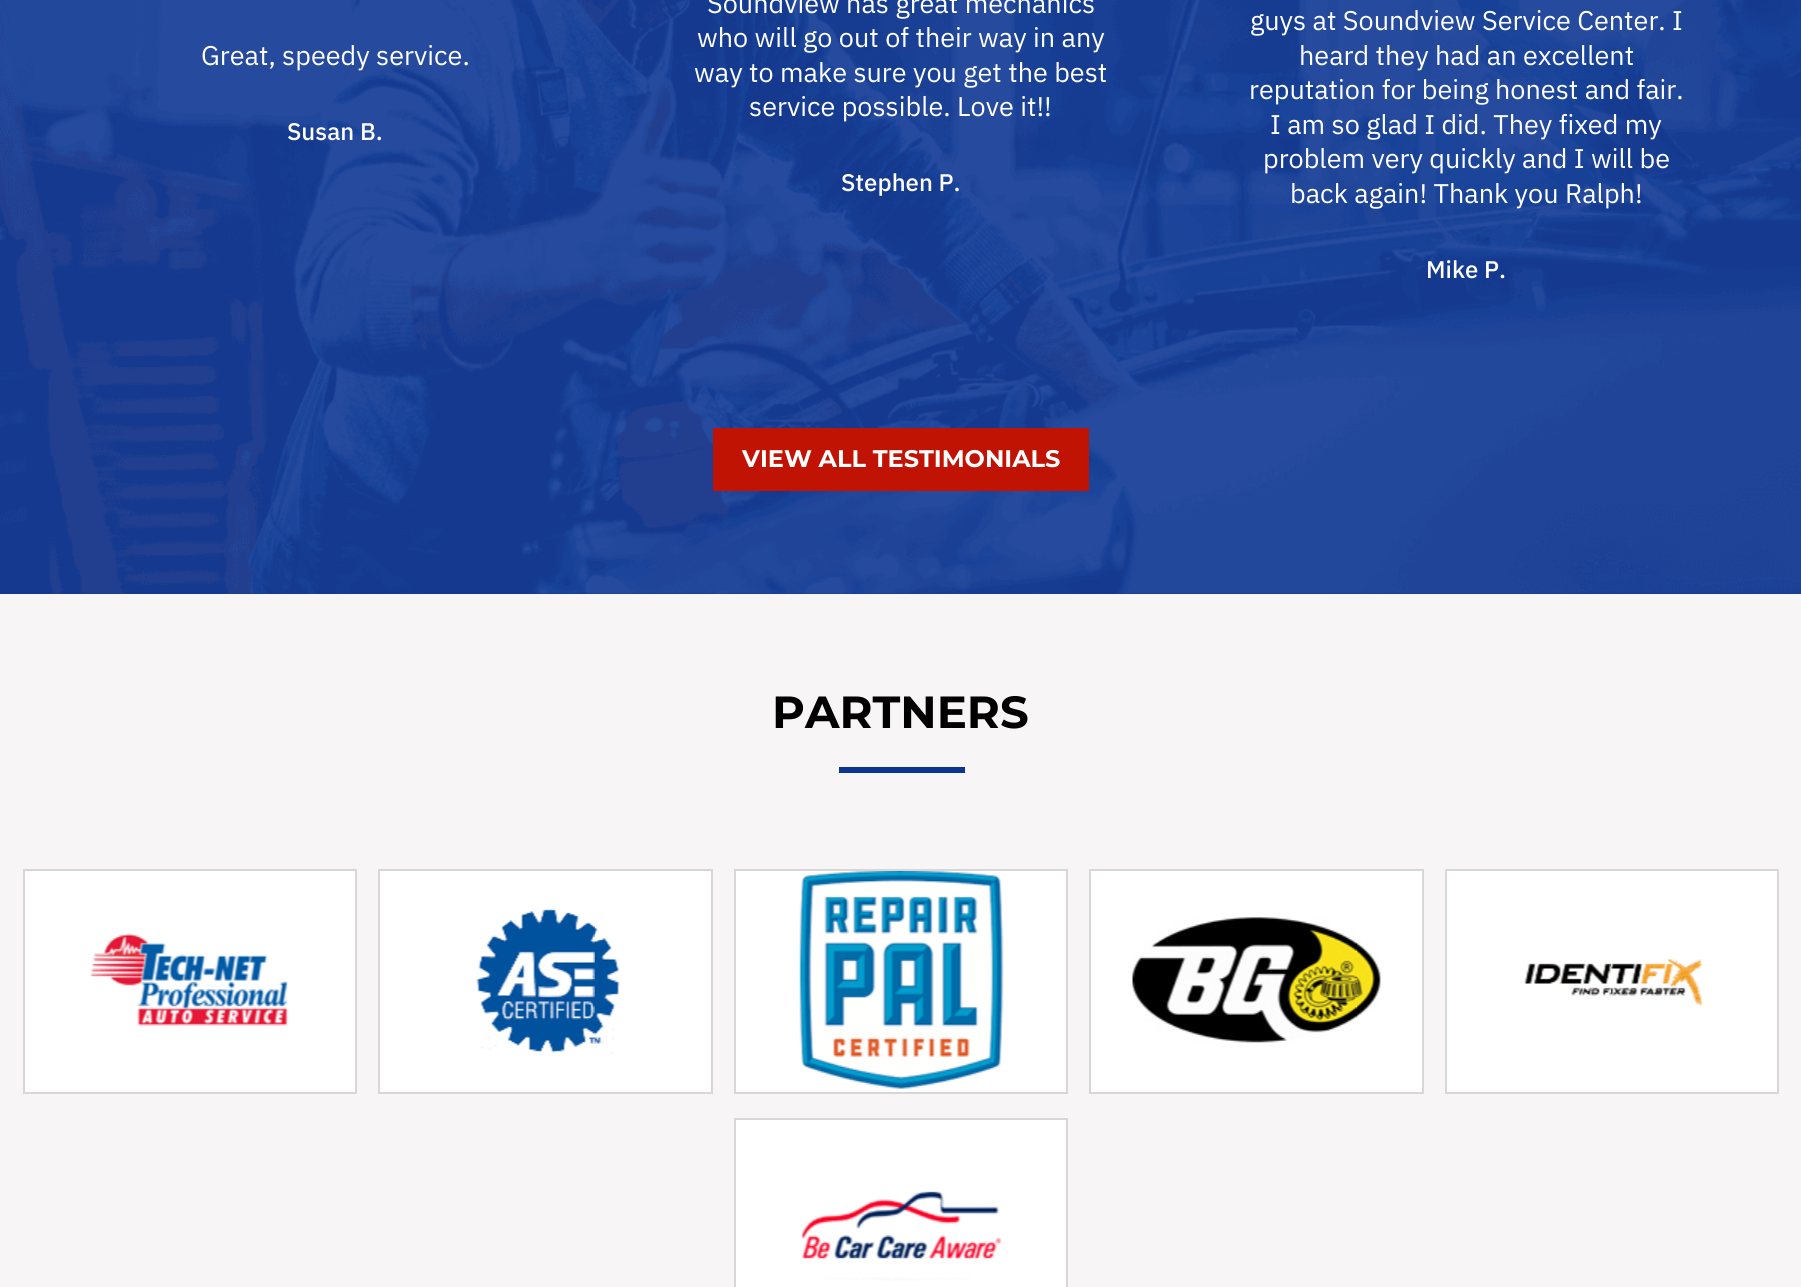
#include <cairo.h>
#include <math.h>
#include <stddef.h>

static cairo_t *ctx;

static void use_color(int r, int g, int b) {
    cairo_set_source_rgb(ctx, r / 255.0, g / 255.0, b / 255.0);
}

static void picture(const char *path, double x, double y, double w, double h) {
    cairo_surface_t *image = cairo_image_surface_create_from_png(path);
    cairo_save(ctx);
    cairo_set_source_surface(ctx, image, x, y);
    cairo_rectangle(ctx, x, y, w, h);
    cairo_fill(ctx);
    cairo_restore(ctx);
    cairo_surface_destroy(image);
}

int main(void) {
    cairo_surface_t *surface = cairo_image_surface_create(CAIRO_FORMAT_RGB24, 1801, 1287);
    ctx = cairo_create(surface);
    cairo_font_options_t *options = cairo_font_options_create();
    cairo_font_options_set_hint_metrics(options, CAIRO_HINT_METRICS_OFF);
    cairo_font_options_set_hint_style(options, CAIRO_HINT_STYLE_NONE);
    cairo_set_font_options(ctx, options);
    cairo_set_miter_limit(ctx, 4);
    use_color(19, 59, 153);
    cairo_paint(ctx);
    picture("img1.png", 0, 0, 1801, 594);
    cairo_select_font_face(ctx, "IBM Plex Sans", CAIRO_FONT_SLANT_NORMAL, CAIRO_FONT_WEIGHT_NORMAL);
    cairo_set_font_size(ctx, 27);
    use_color(255, 255, 255);
    cairo_move_to(ctx, 201, 65);
    cairo_show_text(ctx, "Great, speedy service.");
    cairo_select_font_face(ctx, "IBM Plex Sans Medium", CAIRO_FONT_SLANT_NORMAL, CAIRO_FONT_WEIGHT_NORMAL);
    cairo_set_font_size(ctx, 24);
    cairo_move_to(ctx, 287, 140);
    cairo_show_text(ctx, "Susan B.");
    cairo_select_font_face(ctx, "IBM Plex Sans", CAIRO_FONT_SLANT_NORMAL, CAIRO_FONT_WEIGHT_NORMAL);
    cairo_set_font_size(ctx, 27);
    cairo_move_to(ctx, 707, 13);
    cairo_show_text(ctx, "Soundview has great mechanics");
    cairo_move_to(ctx, 697, 47);
    cairo_show_text(ctx, "who will go out of their way in any");
    cairo_move_to(ctx, 694, 82);
    cairo_show_text(ctx, "way to make sure you get the best");
    cairo_move_to(ctx, 749, 116);
    cairo_show_text(ctx, "service possible. Love it!!");
    cairo_select_font_face(ctx, "IBM Plex Sans Medium", CAIRO_FONT_SLANT_NORMAL, CAIRO_FONT_WEIGHT_NORMAL);
    cairo_set_font_size(ctx, 24);
    cairo_move_to(ctx, 841, 191);
    cairo_show_text(ctx, "Stephen P.");
    cairo_select_font_face(ctx, "IBM Plex Sans", CAIRO_FONT_SLANT_NORMAL, CAIRO_FONT_WEIGHT_NORMAL);
    cairo_set_font_size(ctx, 27);
    cairo_move_to(ctx, 1250, 30);
    cairo_show_text(ctx, "guys at Soundview Service Center. I");
    cairo_move_to(ctx, 1299, 65);
    cairo_show_text(ctx, "heard they had an excellent");
    cairo_move_to(ctx, 1249, 99);
    cairo_show_text(ctx, "reputation for being honest and fair.");
    cairo_move_to(ctx, 1270, 134);
    cairo_show_text(ctx, "I am so glad I did. They fixed my");
    cairo_move_to(ctx, 1263, 168);
    cairo_show_text(ctx, "problem very quickly and I will be");
    cairo_move_to(ctx, 1290, 203);
    cairo_show_text(ctx, "back again! Thank you Ralph!");
    cairo_select_font_face(ctx, "IBM Plex Sans Medium", CAIRO_FONT_SLANT_NORMAL, CAIRO_FONT_WEIGHT_NORMAL);
    cairo_set_font_size(ctx, 24);
    cairo_move_to(ctx, 1426, 278);
    cairo_show_text(ctx, "Mike P.");
    use_color(193, 19, 4);
    cairo_rectangle(ctx, 713, 428, 376, 63);
    cairo_fill(ctx);
    cairo_select_font_face(ctx, "Montserrat", CAIRO_FONT_SLANT_NORMAL, CAIRO_FONT_WEIGHT_BOLD);
    use_color(255, 255, 255);
    cairo_move_to(ctx, 742, 467);
    cairo_show_text(ctx, "VIEW ALL TESTIMONIALS");
    use_color(247, 245, 245);
    cairo_rectangle(ctx, 0, 594, 1801, 693);
    cairo_fill(ctx);
    cairo_set_font_size(ctx, 45);
    use_color(0, 0, 0);
    cairo_move_to(ctx, 772, 728);
    cairo_show_text(ctx, "PARTNERS");
    use_color(12, 53, 146);
    cairo_rectangle(ctx, 839, 767, 126, 6);
    cairo_fill(ctx);
    use_color(255, 255, 255);
    cairo_rectangle(ctx, 24, 870, 332, 223);
    cairo_fill_preserve(ctx);
    use_color(216, 214, 214);
    cairo_stroke(ctx);
    picture("img2.png", 90, 933, 199, 93);
    use_color(255, 255, 255);
    cairo_rectangle(ctx, 379, 870, 333, 223);
    cairo_fill_preserve(ctx);
    use_color(216, 214, 214);
    cairo_stroke(ctx);
    picture("img3.png", 476, 909, 144, 145);
    use_color(255, 255, 255);
    cairo_rectangle(ctx, 735, 870, 332, 223);
    cairo_fill_preserve(ctx);
    use_color(216, 214, 214);
    cairo_stroke(ctx);
    picture("img4.png", 799, 871, 205, 218);
    use_color(255, 255, 255);
    cairo_rectangle(ctx, 1090, 870, 333, 223);
    cairo_fill_preserve(ctx);
    use_color(216, 214, 214);
    cairo_stroke(ctx);
    picture("img5.png", 1132, 917, 249, 126);
    use_color(255, 255, 255);
    cairo_rectangle(ctx, 1446, 870, 332, 223);
    cairo_fill_preserve(ctx);
    use_color(216, 214, 214);
    cairo_stroke(ctx);
    picture("img6.png", 1524, 959, 180, 48);
    use_color(255, 255, 255);
    cairo_rectangle(ctx, 735, 1119, 332, 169);
    cairo_fill_preserve(ctx);
    use_color(216, 214, 214);
    cairo_stroke(ctx);
    picture("img7.png", 801, 1191, 201, 90);
    cairo_surface_write_to_png(surface, "result.png");
    cairo_font_options_destroy(options);
    cairo_destroy(ctx);
    cairo_surface_destroy(surface);
    return 0;
}
